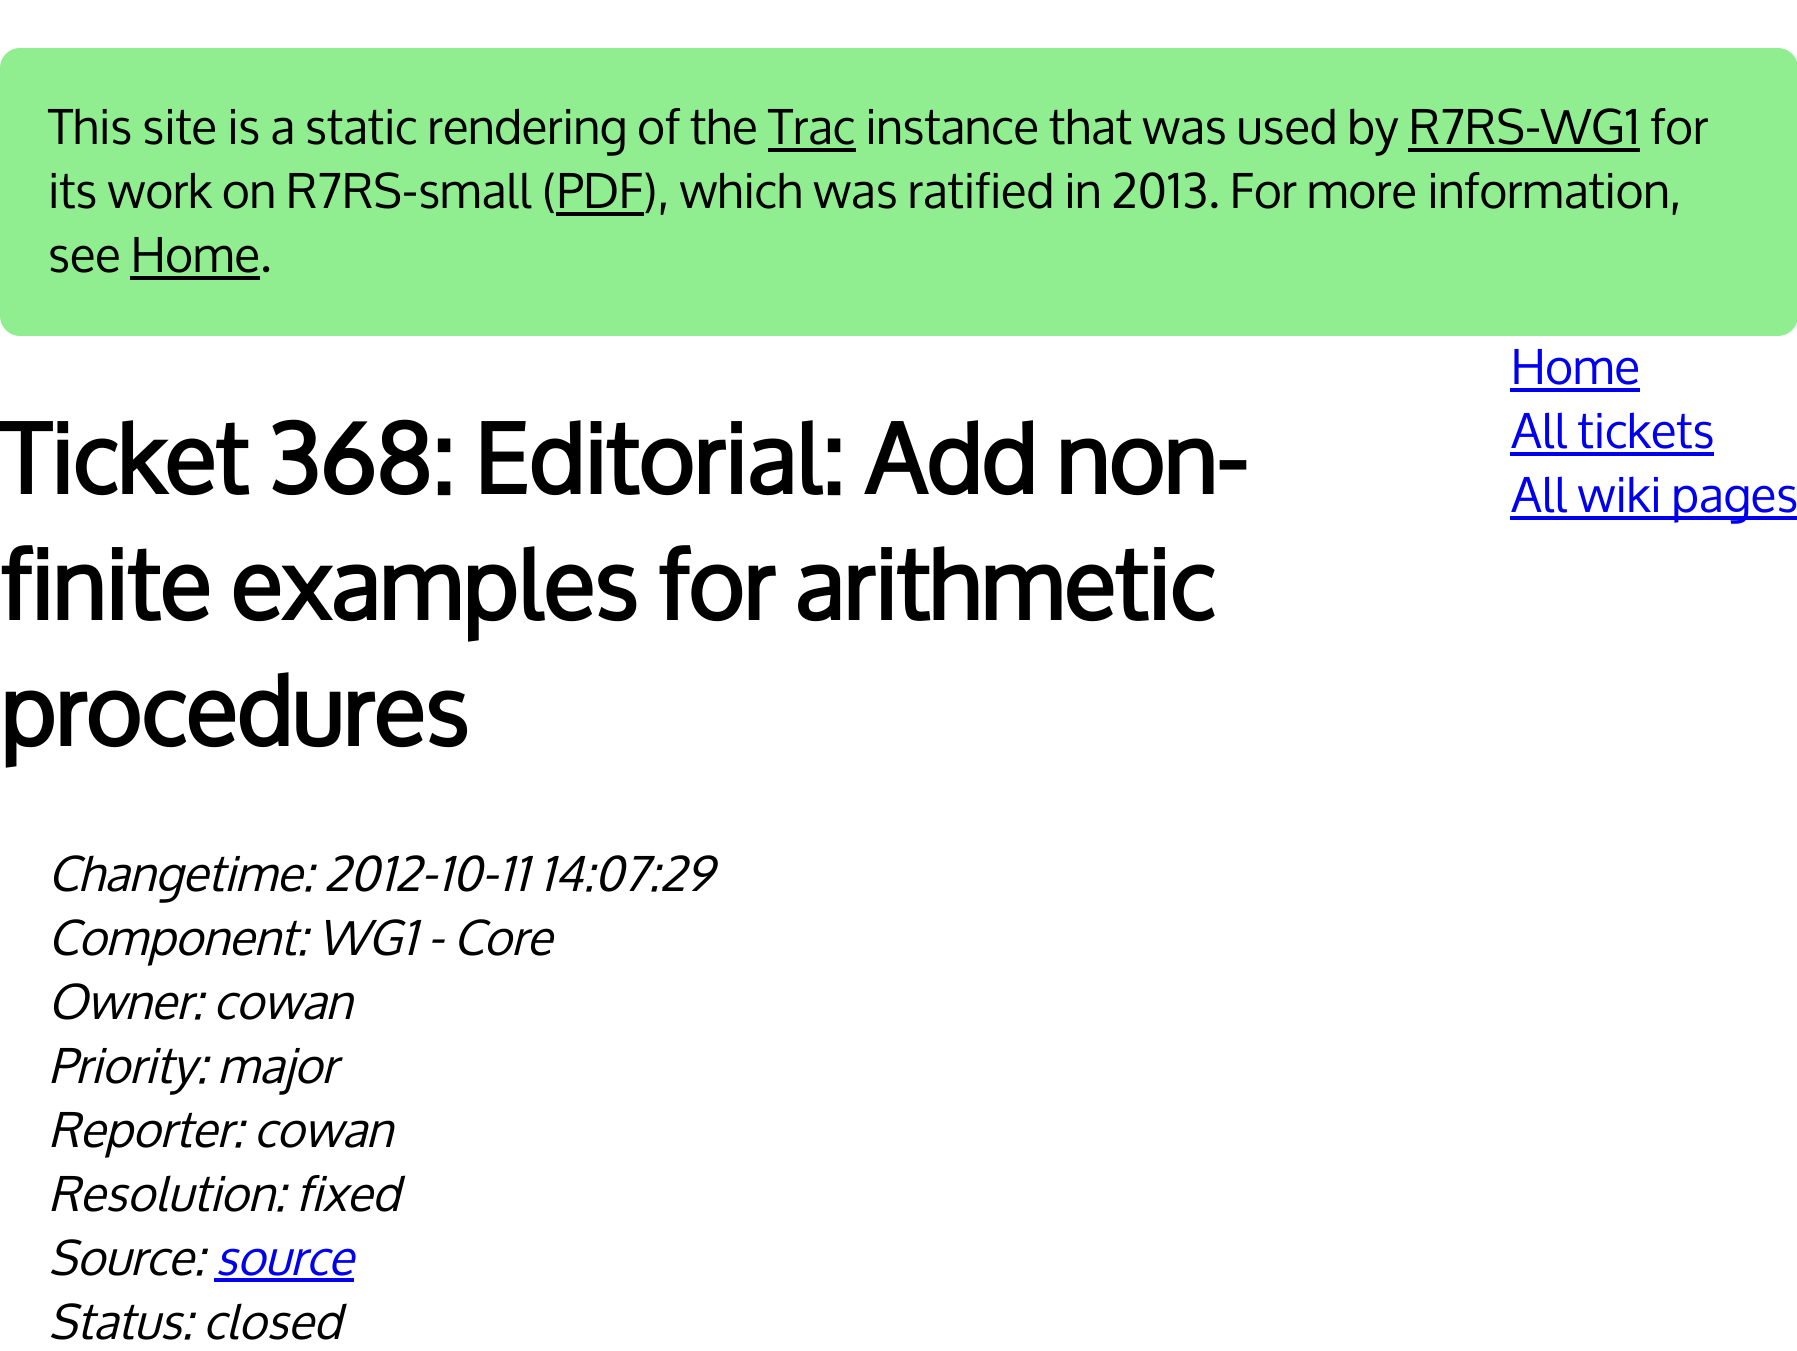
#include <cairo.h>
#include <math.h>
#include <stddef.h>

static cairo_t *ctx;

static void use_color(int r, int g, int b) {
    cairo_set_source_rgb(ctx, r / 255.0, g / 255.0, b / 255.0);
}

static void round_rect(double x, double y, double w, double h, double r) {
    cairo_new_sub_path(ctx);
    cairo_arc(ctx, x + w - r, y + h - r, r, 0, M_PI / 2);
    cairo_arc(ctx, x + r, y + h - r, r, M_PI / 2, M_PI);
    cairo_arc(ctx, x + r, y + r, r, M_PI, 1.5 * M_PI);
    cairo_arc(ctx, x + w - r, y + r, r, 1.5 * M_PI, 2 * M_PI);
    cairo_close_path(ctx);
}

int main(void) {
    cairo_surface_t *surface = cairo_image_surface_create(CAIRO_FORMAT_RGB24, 1797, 1351);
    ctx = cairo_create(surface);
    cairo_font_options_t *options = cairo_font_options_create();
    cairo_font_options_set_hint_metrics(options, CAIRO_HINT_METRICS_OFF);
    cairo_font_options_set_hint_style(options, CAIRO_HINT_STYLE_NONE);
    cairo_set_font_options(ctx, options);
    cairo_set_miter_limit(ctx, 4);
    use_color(255, 255, 255);
    cairo_paint(ctx);
    use_color(144, 238, 144);
    round_rect(0, 48, 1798, 288, 20);
    cairo_fill(ctx);
    cairo_select_font_face(ctx, "Oxygen", CAIRO_FONT_SLANT_NORMAL, CAIRO_FONT_WEIGHT_NORMAL);
    cairo_set_font_size(ctx, 48);
    use_color(0, 0, 0);
    cairo_move_to(ctx, 48, 144);
    cairo_show_text(ctx, "This site is a static rendering of the Trac instance that was used by R7RS-WG1 for");
    cairo_rectangle(ctx, 768, 148, 88, 4);
    cairo_fill(ctx);
    cairo_rectangle(ctx, 1408, 148, 232, 4);
    cairo_fill(ctx);
    cairo_move_to(ctx, 48, 208);
    cairo_show_text(ctx, "its work on R7RS-small (PDF), which was ratified in 2013. For more information,");
    cairo_rectangle(ctx, 556, 212, 88, 4);
    cairo_fill(ctx);
    cairo_move_to(ctx, 48, 272);
    cairo_show_text(ctx, "see Home.");
    cairo_rectangle(ctx, 130, 276, 130, 4);
    cairo_fill(ctx);
    cairo_select_font_face(ctx, "Oxygen", CAIRO_FONT_SLANT_NORMAL, CAIRO_FONT_WEIGHT_BOLD);
    cairo_set_font_size(ctx, 96);
    cairo_move_to(ctx, 0, 494);
    cairo_show_text(ctx, "Ticket 368: Editorial: Add non-");
    cairo_move_to(ctx, 0, 620);
    cairo_show_text(ctx, "finite examples for arithmetic");
    cairo_move_to(ctx, 0, 746);
    cairo_show_text(ctx, "procedures");
    cairo_select_font_face(ctx, "Oxygen", CAIRO_FONT_SLANT_NORMAL, CAIRO_FONT_WEIGHT_NORMAL);
    cairo_set_font_size(ctx, 48);
    use_color(0, 0, 238);
    cairo_move_to(ctx, 1511, 384);
    cairo_show_text(ctx, "Home");
    cairo_rectangle(ctx, 1510, 388, 130, 4);
    cairo_fill(ctx);
    cairo_move_to(ctx, 1511, 448);
    cairo_show_text(ctx, "All tickets");
    cairo_rectangle(ctx, 1510, 452, 204, 4);
    cairo_fill(ctx);
    cairo_rectangle(ctx, 1510, 516, 287, 4);
    cairo_fill(ctx);
    cairo_move_to(ctx, 1511, 512);
    cairo_show_text(ctx, "All wiki pages");
    cairo_select_font_face(ctx, "Oxygen", CAIRO_FONT_SLANT_ITALIC, CAIRO_FONT_WEIGHT_NORMAL);
    use_color(0, 0, 0);
    cairo_move_to(ctx, 48, 891);
    cairo_show_text(ctx, "Changetime: 2012-10-11 14:07:29");
    cairo_move_to(ctx, 48, 955);
    cairo_show_text(ctx, "Component: WG1 - Core");
    cairo_move_to(ctx, 48, 1019);
    cairo_show_text(ctx, "Owner: cowan");
    cairo_move_to(ctx, 48, 1083);
    cairo_show_text(ctx, "Priority: major");
    cairo_move_to(ctx, 48, 1147);
    cairo_show_text(ctx, "Reporter: cowan");
    cairo_move_to(ctx, 48, 1211);
    cairo_show_text(ctx, "Resolution: fixed");
    cairo_move_to(ctx, 48, 1275);
    cairo_show_text(ctx, "Source:");
    use_color(0, 0, 238);
    cairo_move_to(ctx, 215, 1275);
    cairo_show_text(ctx, "source");
    cairo_rectangle(ctx, 214, 1278, 140, 4);
    cairo_fill(ctx);
    use_color(0, 0, 0);
    cairo_move_to(ctx, 48, 1339);
    cairo_show_text(ctx, "Status: closed");
    cairo_surface_write_to_png(surface, "result.png");
    cairo_font_options_destroy(options);
    cairo_destroy(ctx);
    cairo_surface_destroy(surface);
    return 0;
}
